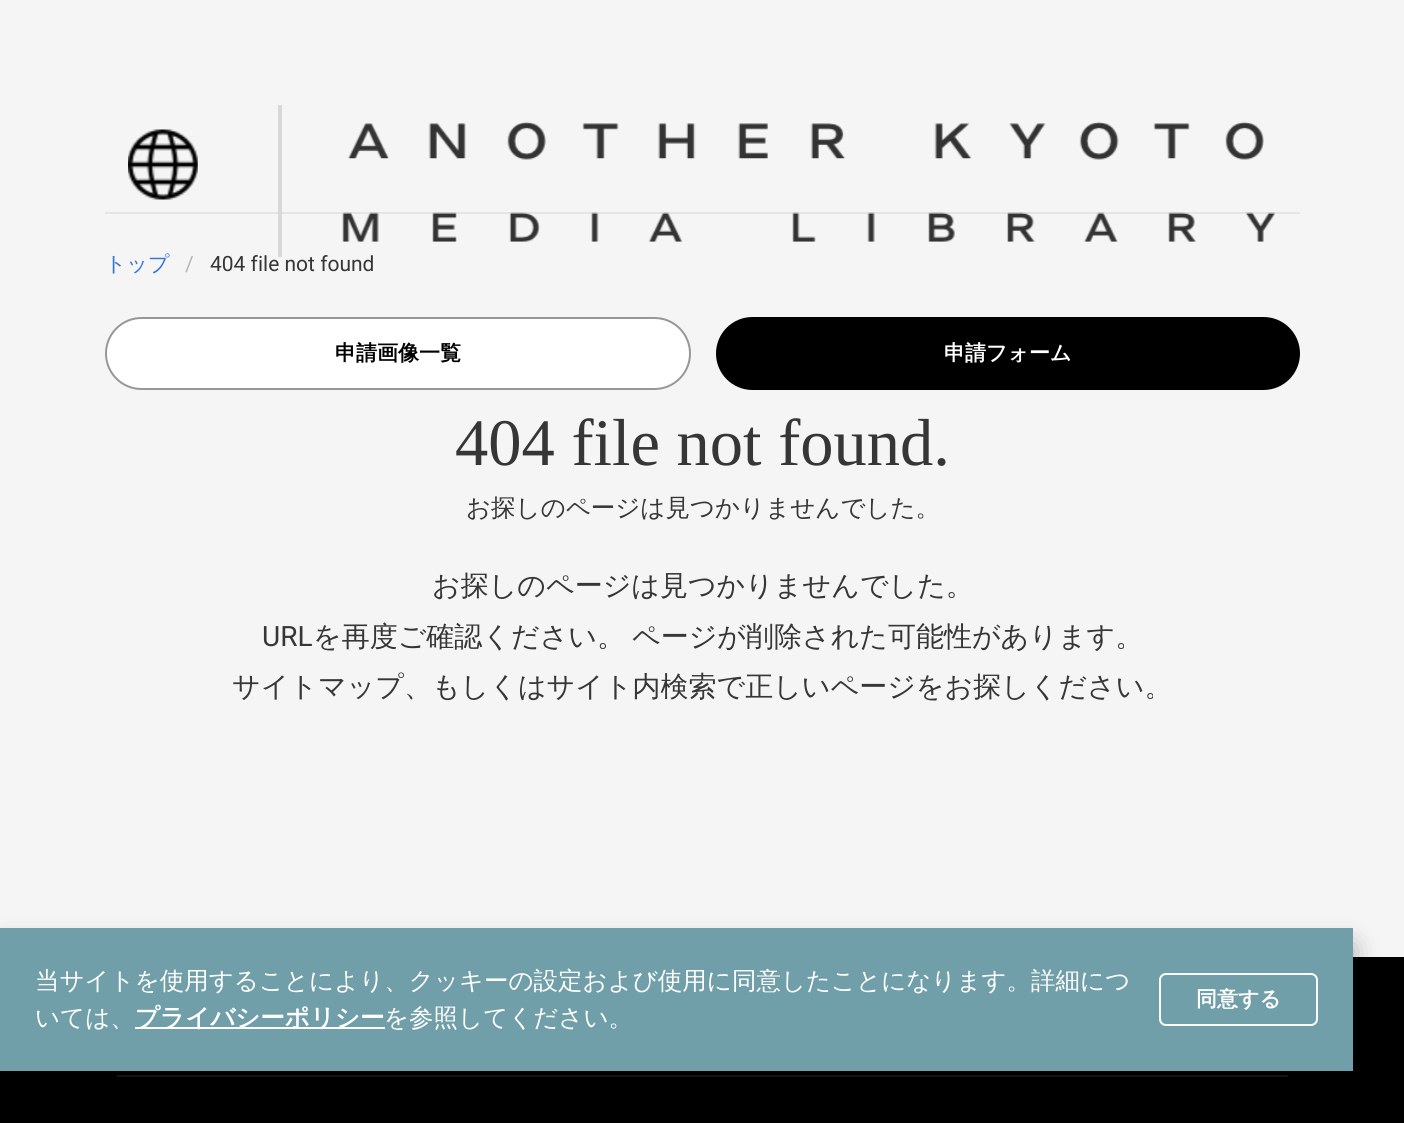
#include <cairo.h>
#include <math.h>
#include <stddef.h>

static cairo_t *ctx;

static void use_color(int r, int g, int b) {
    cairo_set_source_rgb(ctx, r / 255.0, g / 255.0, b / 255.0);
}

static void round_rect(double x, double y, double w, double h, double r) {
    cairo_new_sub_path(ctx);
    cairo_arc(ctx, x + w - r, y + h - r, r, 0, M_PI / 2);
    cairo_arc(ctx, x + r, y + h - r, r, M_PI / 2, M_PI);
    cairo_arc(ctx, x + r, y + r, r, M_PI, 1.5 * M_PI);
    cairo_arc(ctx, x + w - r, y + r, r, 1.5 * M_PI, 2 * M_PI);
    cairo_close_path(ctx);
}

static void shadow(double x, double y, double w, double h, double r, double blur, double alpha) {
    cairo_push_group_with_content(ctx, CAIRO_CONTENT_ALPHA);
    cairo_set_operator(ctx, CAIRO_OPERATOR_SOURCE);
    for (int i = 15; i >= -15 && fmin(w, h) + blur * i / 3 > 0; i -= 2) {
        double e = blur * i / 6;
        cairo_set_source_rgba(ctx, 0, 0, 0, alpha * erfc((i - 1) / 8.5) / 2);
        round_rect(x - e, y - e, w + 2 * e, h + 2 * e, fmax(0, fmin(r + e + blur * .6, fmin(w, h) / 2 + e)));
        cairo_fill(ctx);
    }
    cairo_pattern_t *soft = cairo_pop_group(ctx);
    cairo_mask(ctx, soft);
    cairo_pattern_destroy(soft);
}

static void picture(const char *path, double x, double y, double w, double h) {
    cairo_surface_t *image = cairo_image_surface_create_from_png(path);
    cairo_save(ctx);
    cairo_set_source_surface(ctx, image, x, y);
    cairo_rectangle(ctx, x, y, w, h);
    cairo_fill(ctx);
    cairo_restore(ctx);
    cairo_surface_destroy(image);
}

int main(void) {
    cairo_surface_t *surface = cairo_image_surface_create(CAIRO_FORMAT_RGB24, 1404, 1123);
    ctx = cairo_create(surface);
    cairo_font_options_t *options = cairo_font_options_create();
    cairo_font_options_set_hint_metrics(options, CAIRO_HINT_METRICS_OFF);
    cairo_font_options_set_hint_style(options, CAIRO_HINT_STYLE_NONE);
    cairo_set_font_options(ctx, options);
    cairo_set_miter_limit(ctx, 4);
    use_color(0, 0, 0);
    cairo_paint(ctx);
    use_color(245, 245, 245);
    cairo_rectangle(ctx, 0, 0, 1404, 957);
    cairo_fill(ctx);
    use_color(229, 229, 229);
    cairo_rectangle(ctx, 105, 212, 1195, 2);
    cairo_fill(ctx);
    cairo_select_font_face(ctx, "WenQuanYi Zen Hei Medium", CAIRO_FONT_SLANT_NORMAL, CAIRO_FONT_WEIGHT_NORMAL);
    cairo_set_font_size(ctx, 21);
    use_color(50, 115, 220);
    cairo_move_to(ctx, 105, 271);
    cairo_show_text(ctx, "トップ");
    cairo_select_font_face(ctx, "Roboto", CAIRO_FONT_SLANT_NORMAL, CAIRO_FONT_WEIGHT_NORMAL);
    use_color(181, 181, 181);
    cairo_move_to(ctx, 185, 271);
    cairo_show_text(ctx, "/");
    use_color(54, 54, 54);
    cairo_move_to(ctx, 210, 271);
    cairo_show_text(ctx, "404 file not found");
    cairo_select_font_face(ctx, "Liberation Serif", CAIRO_FONT_SLANT_NORMAL, CAIRO_FONT_WEIGHT_NORMAL);
    cairo_set_font_size(ctx, 66.5);
    cairo_move_to(ctx, 455, 465);
    cairo_show_text(ctx, "404 file not found.");
    cairo_select_font_face(ctx, "WenQuanYi Zen Hei Medium", CAIRO_FONT_SLANT_NORMAL, CAIRO_FONT_WEIGHT_NORMAL);
    cairo_set_font_size(ctx, 24.5);
    cairo_move_to(ctx, 466, 516);
    cairo_show_text(ctx, "お探しのページは見つかりませんでした。");
    cairo_set_font_size(ctx, 28);
    cairo_move_to(ctx, 432, 595);
    cairo_show_text(ctx, "お探しのページは見つかりませんでした。");
    cairo_select_font_face(ctx, "Roboto", CAIRO_FONT_SLANT_NORMAL, CAIRO_FONT_WEIGHT_NORMAL);
    cairo_move_to(ctx, 262, 646);
    cairo_show_text(ctx, "URL");
    cairo_select_font_face(ctx, "WenQuanYi Zen Hei Medium", CAIRO_FONT_SLANT_NORMAL, CAIRO_FONT_WEIGHT_NORMAL);
    cairo_move_to(ctx, 313, 646);
    cairo_show_text(ctx, "を再度ご確認ください。");
    cairo_move_to(ctx, 632, 646);
    cairo_show_text(ctx, "ページが削除された可能性があります。");
    cairo_move_to(ctx, 232, 696);
    cairo_show_text(ctx, "サイトマップ、もしくはサイト内検索で正しいページをお探しください。");
    picture("img1.png", 128, 129, 70, 71);
    use_color(216, 216, 216);
    cairo_rectangle(ctx, 278, 105, 4, 152);
    cairo_fill(ctx);
    picture("img2.png", 342, 121, 933, 121);
    use_color(255, 255, 255);
    round_rect(106, 318, 584, 71, 35.5);
    cairo_fill_preserve(ctx);
    use_color(151, 151, 151);
    cairo_stroke(ctx);
    cairo_select_font_face(ctx, "WenQuanYi Zen Hei", CAIRO_FONT_SLANT_NORMAL, CAIRO_FONT_WEIGHT_BOLD);
    cairo_set_font_size(ctx, 21);
    use_color(0, 0, 0);
    cairo_move_to(ctx, 335, 360);
    cairo_show_text(ctx, "申請画像一覧");
    round_rect(716, 317, 584, 73, 36.5);
    cairo_fill(ctx);
    use_color(255, 255, 255);
    cairo_move_to(ctx, 944, 360);
    cairo_show_text(ctx, "申請フォーム");
    use_color(26, 26, 26);
    cairo_rectangle(ctx, 117, 1075, 1171, 2);
    cairo_fill(ctx);
    use_color(0, 0, 0);
    shadow(0, 945, 1353, 144, 0, 13, 0.3);
    use_color(112, 159, 169);
    cairo_rectangle(ctx, 0, 928, 1353, 143);
    cairo_fill(ctx);
    cairo_select_font_face(ctx, "WenQuanYi Zen Hei Medium", CAIRO_FONT_SLANT_NORMAL, CAIRO_FONT_WEIGHT_NORMAL);
    cairo_set_font_size(ctx, 24.5);
    use_color(255, 255, 255);
    cairo_move_to(ctx, 35, 989);
    cairo_show_text(ctx, "当サイトを使用することにより、クッキーの設定および使用に同意したことになります。詳細につ");
    cairo_move_to(ctx, 35, 1026);
    cairo_show_text(ctx, "いては、");
    cairo_rectangle(ctx, 135, 1027, 250, 2);
    cairo_fill(ctx);
    cairo_select_font_face(ctx, "WenQuanYi Zen Hei", CAIRO_FONT_SLANT_NORMAL, CAIRO_FONT_WEIGHT_BOLD);
    cairo_move_to(ctx, 135, 1026);
    cairo_show_text(ctx, "プライバシーポリシー");
    cairo_select_font_face(ctx, "WenQuanYi Zen Hei Medium", CAIRO_FONT_SLANT_NORMAL, CAIRO_FONT_WEIGHT_NORMAL);
    cairo_move_to(ctx, 384, 1026);
    cairo_show_text(ctx, "を参照してください。");
    round_rect(1160, 974, 157, 51, 6);
    cairo_stroke(ctx);
    cairo_select_font_face(ctx, "WenQuanYi Zen Hei", CAIRO_FONT_SLANT_NORMAL, CAIRO_FONT_WEIGHT_BOLD);
    cairo_set_font_size(ctx, 21);
    cairo_move_to(ctx, 1196, 1006);
    cairo_show_text(ctx, "同意する");
    cairo_surface_write_to_png(surface, "result.png");
    cairo_font_options_destroy(options);
    cairo_destroy(ctx);
    cairo_surface_destroy(surface);
    return 0;
}
